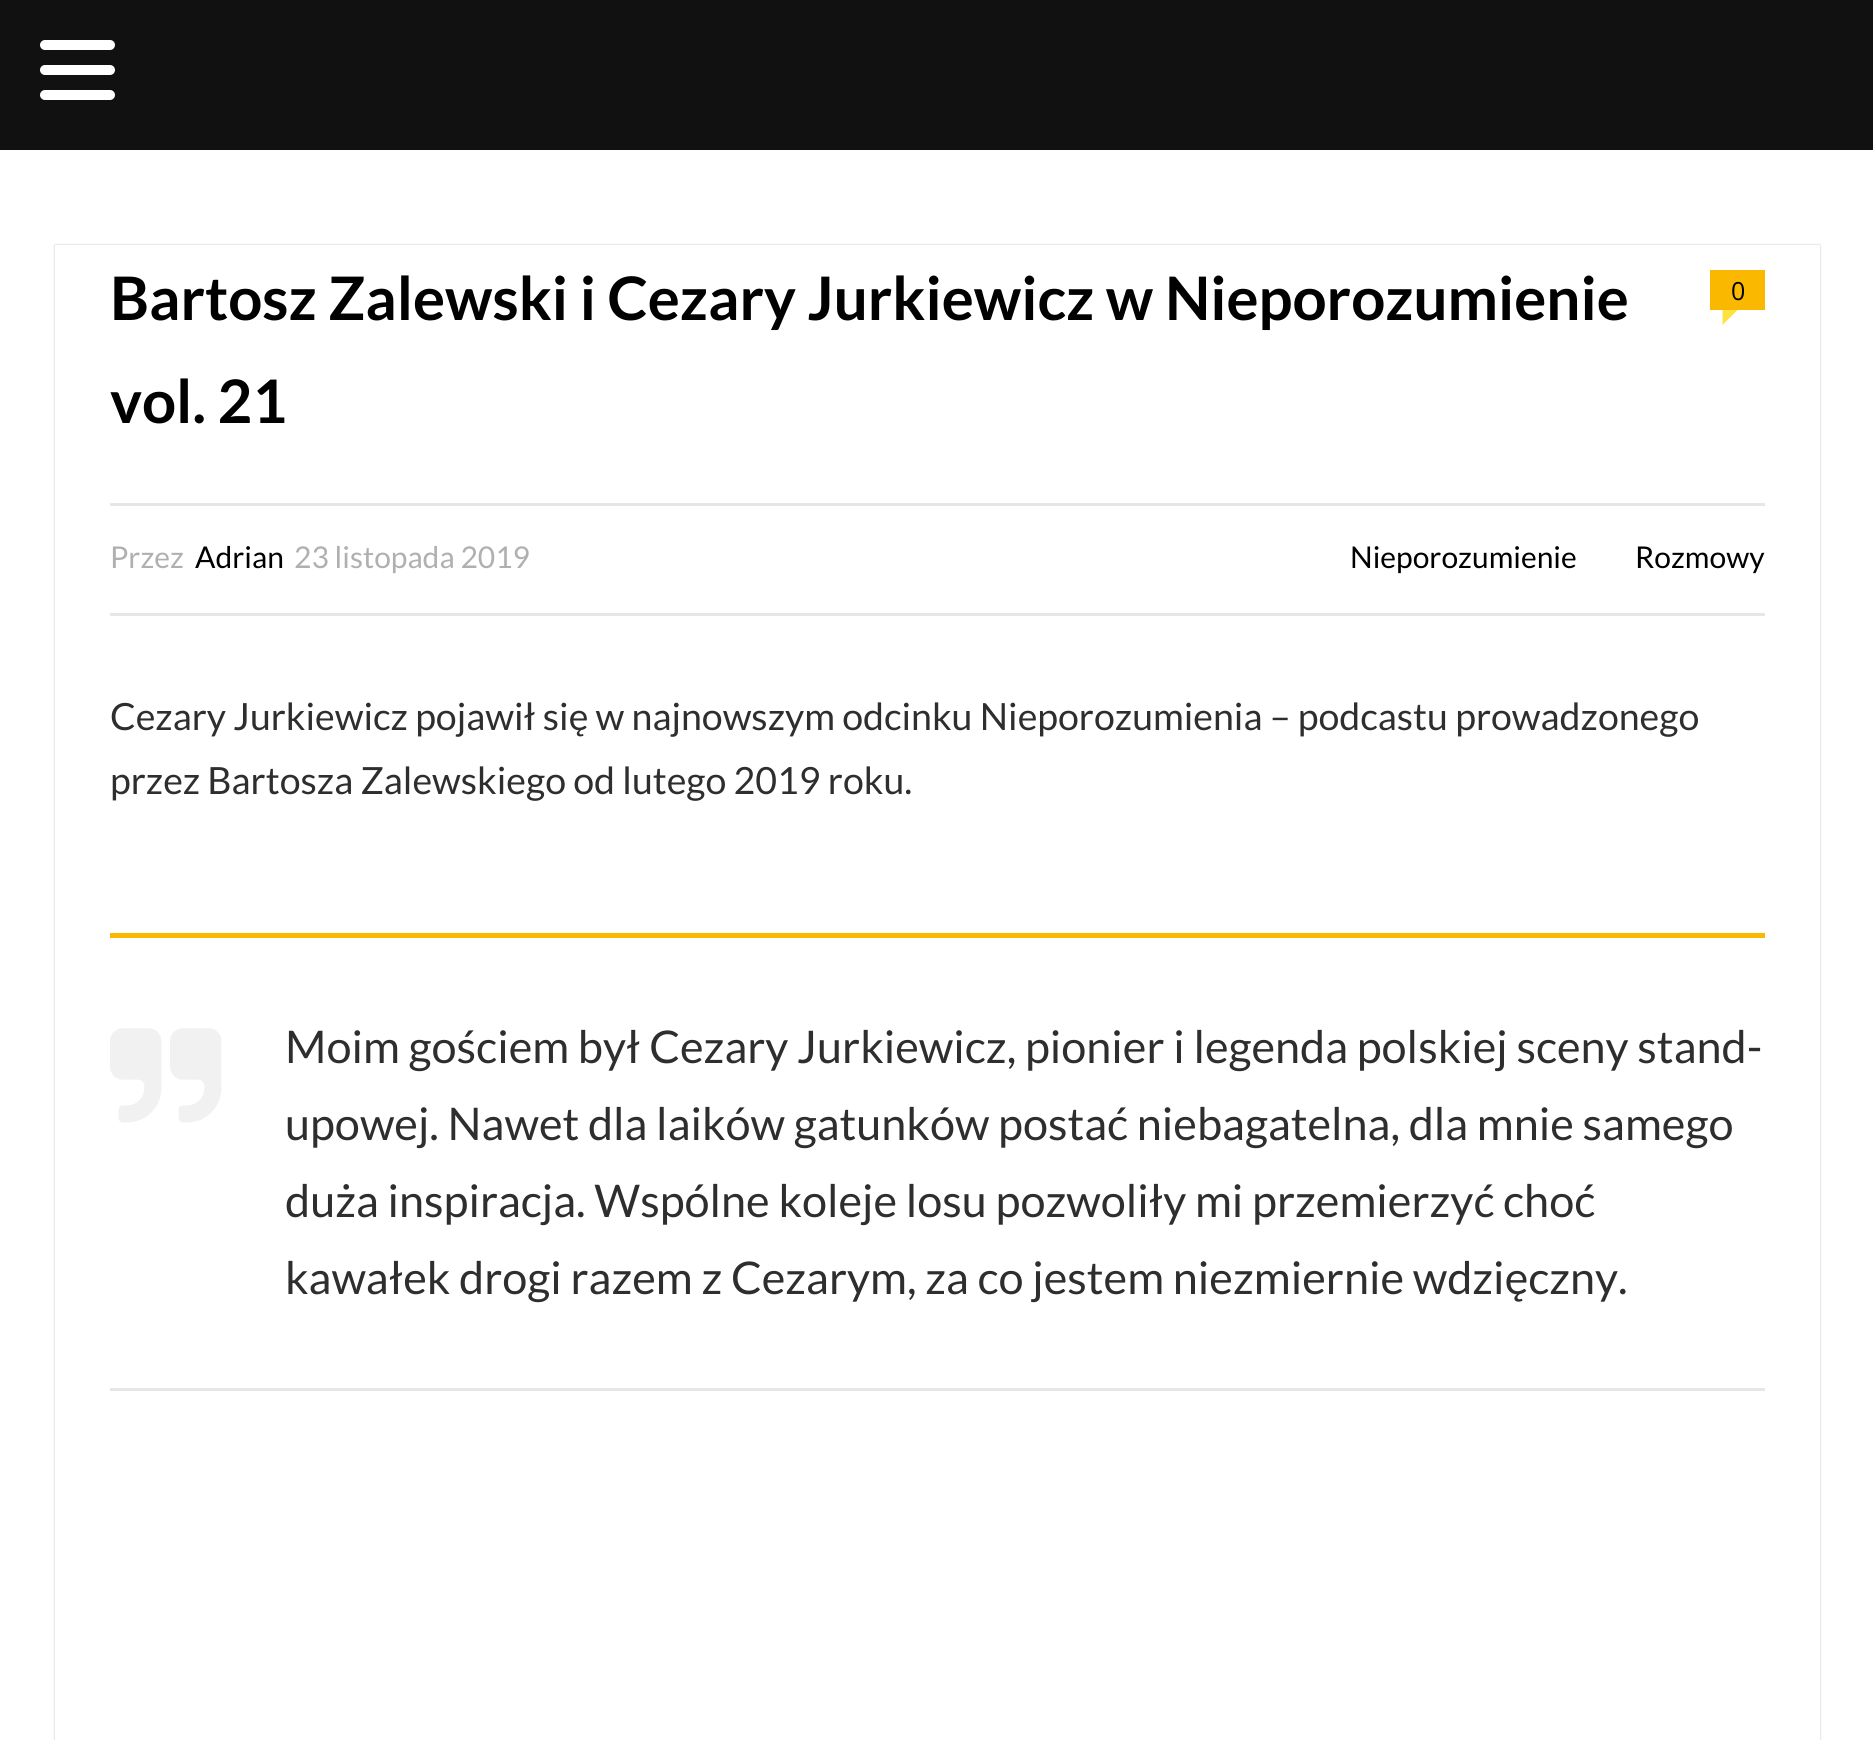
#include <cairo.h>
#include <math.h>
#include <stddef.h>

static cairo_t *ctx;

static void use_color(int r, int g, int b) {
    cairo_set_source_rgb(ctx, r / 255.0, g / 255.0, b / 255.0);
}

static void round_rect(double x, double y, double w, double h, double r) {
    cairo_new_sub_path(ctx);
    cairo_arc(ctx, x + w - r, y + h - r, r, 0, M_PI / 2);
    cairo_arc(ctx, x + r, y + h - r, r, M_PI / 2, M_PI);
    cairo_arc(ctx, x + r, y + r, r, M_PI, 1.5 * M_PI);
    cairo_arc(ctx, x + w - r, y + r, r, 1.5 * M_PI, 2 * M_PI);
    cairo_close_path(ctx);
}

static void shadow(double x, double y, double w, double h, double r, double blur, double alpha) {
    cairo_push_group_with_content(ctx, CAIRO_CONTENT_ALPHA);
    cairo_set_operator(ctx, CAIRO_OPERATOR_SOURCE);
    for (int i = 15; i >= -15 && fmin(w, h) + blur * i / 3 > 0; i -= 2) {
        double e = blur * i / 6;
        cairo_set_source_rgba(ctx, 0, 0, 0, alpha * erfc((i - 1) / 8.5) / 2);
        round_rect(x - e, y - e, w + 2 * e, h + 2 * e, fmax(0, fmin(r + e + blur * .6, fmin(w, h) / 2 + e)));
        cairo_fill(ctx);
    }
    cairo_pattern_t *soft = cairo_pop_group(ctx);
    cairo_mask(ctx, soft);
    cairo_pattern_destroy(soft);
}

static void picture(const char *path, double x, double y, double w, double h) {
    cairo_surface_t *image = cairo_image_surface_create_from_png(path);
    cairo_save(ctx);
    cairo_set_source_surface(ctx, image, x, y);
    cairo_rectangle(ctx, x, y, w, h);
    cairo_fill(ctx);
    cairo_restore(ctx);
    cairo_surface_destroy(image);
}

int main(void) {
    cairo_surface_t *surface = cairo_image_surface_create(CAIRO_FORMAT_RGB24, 1873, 1740);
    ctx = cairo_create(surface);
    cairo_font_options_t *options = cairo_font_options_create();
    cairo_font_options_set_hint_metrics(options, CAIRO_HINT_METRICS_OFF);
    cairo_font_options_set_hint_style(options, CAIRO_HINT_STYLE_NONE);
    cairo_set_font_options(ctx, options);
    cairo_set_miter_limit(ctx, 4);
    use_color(255, 255, 255);
    cairo_paint(ctx);
    use_color(17, 17, 17);
    cairo_rectangle(ctx, 0, 0, 1873, 150);
    cairo_fill(ctx);
    use_color(255, 255, 255);
    round_rect(40, 40, 75, 10, 5);
    cairo_fill(ctx);
    round_rect(40, 65, 75, 10, 5);
    cairo_fill(ctx);
    round_rect(40, 90, 75, 10, 5);
    cairo_fill(ctx);
    cairo_save(ctx);
    cairo_set_fill_rule(ctx, CAIRO_FILL_RULE_EVEN_ODD);
    cairo_new_path(ctx);
    cairo_move_to(ctx, 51, 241);
    cairo_line_to(ctx, 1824, 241);
    cairo_line_to(ctx, 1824, 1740);
    cairo_line_to(ctx, 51, 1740);
    cairo_close_path(ctx);
    cairo_move_to(ctx, 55, 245);
    cairo_line_to(ctx, 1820, 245);
    cairo_line_to(ctx, 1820, 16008);
    cairo_line_to(ctx, 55, 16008);
    cairo_close_path(ctx);
    cairo_clip(ctx);
    use_color(0, 0, 0);
    shadow(55, 245, 1765, 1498, 0, 1, 0.25);
    cairo_restore(ctx);
    cairo_select_font_face(ctx, "Lato", CAIRO_FONT_SLANT_NORMAL, CAIRO_FONT_WEIGHT_BOLD);
    cairo_set_font_size(ctx, 60);
    use_color(0, 0, 0);
    cairo_move_to(ctx, 110, 320);
    cairo_show_text(ctx, "Bartosz Zalewski i Cezary Jurkiewicz w Nieporozumienie");
    cairo_move_to(ctx, 110, 423);
    cairo_show_text(ctx, "vol. 21");
    use_color(250, 185, 0);
    cairo_rectangle(ctx, 1710, 270, 55, 40);
    cairo_fill(ctx);
    cairo_select_font_face(ctx, "Open Sans", CAIRO_FONT_SLANT_NORMAL, CAIRO_FONT_WEIGHT_NORMAL);
    cairo_set_font_size(ctx, 25);
    use_color(0, 0, 0);
    cairo_move_to(ctx, 1731, 300);
    cairo_show_text(ctx, "0");
    use_color(255, 226, 64);
    cairo_new_path(ctx);
    cairo_move_to(ctx, 1722.5, 325);
    cairo_line_to(ctx, 1722.5, 310);
    cairo_line_to(ctx, 1737.5, 310);
    cairo_close_path(ctx);
    cairo_fill(ctx);
    use_color(230, 230, 230);
    cairo_rectangle(ctx, 110, 503, 1655, 3);
    cairo_fill(ctx);
    cairo_rectangle(ctx, 110, 613, 1655, 3);
    cairo_fill(ctx);
    cairo_select_font_face(ctx, "Lato", CAIRO_FONT_SLANT_NORMAL, CAIRO_FONT_WEIGHT_NORMAL);
    cairo_set_font_size(ctx, 30);
    use_color(176, 176, 176);
    cairo_move_to(ctx, 110, 568);
    cairo_show_text(ctx, "Przez");
    use_color(0, 0, 0);
    cairo_move_to(ctx, 195, 568);
    cairo_show_text(ctx, "Adrian");
    use_color(176, 176, 176);
    cairo_move_to(ctx, 294, 568);
    cairo_show_text(ctx, "23 listopada 2019");
    use_color(0, 0, 0);
    cairo_move_to(ctx, 1350, 568);
    cairo_show_text(ctx, "Nieporozumienie");
    cairo_move_to(ctx, 1635, 568);
    cairo_show_text(ctx, "Rozmowy");
    cairo_set_font_size(ctx, 37.5);
    use_color(46, 46, 46);
    cairo_move_to(ctx, 110, 730);
    cairo_show_text(ctx, "Cezary Jurkiewicz pojawił się w najnowszym odcinku Nieporozumienia – podcastu prowadzonego");
    cairo_move_to(ctx, 110, 794);
    cairo_show_text(ctx, "przez Bartosza Zalewskiego od lutego 2019 roku.");
    use_color(250, 185, 0);
    cairo_rectangle(ctx, 110, 933, 1655, 5);
    cairo_fill(ctx);
    use_color(230, 230, 230);
    cairo_rectangle(ctx, 110, 1388, 1655, 3);
    cairo_fill(ctx);
    picture("img1.png", 110, 1028, 112, 95);
    cairo_set_font_size(ctx, 45);
    use_color(46, 46, 46);
    cairo_move_to(ctx, 285, 1063);
    cairo_show_text(ctx, "Moim gościem był Cezary Jurkiewicz, pionier i legenda polskiej sceny stand-");
    cairo_move_to(ctx, 285, 1140);
    cairo_show_text(ctx, "upowej. Nawet dla laików gatunków postać niebagatelna, dla mnie samego");
    cairo_move_to(ctx, 285, 1217);
    cairo_show_text(ctx, "duża inspiracja. Wspólne koleje losu pozwoliły mi przemierzyć choć");
    cairo_move_to(ctx, 285, 1294);
    cairo_show_text(ctx, "kawałek drogi razem z Cezarym, za co jestem niezmiernie wdzięczny.");
    cairo_surface_write_to_png(surface, "result.png");
    cairo_font_options_destroy(options);
    cairo_destroy(ctx);
    cairo_surface_destroy(surface);
    return 0;
}
